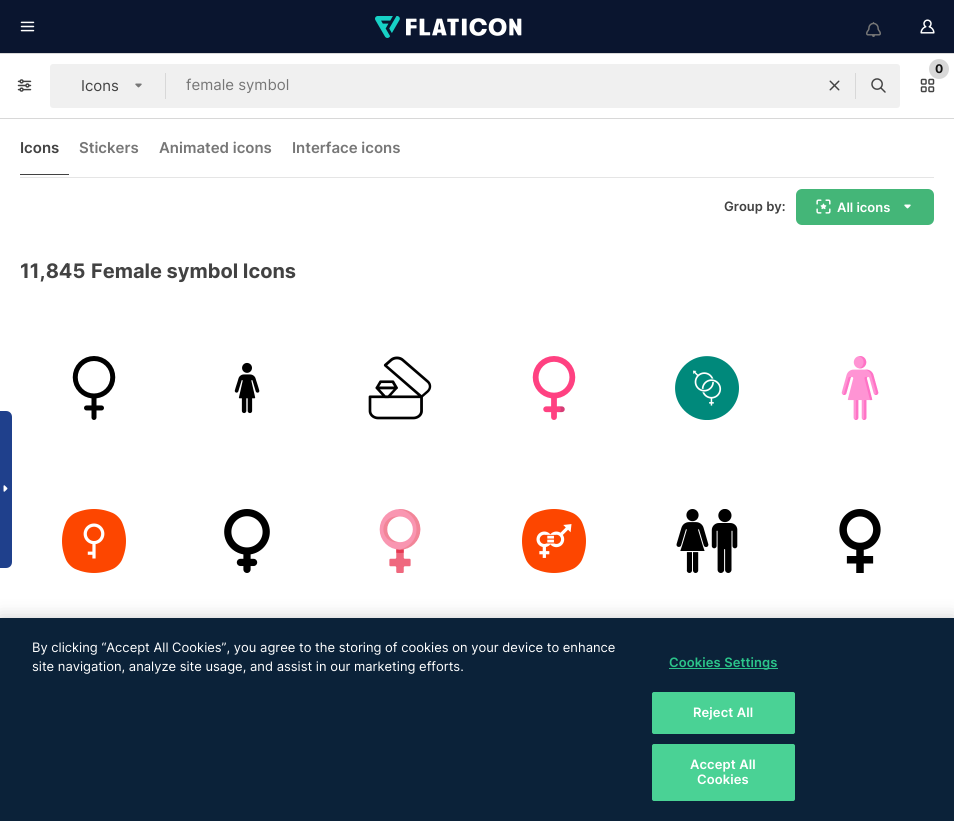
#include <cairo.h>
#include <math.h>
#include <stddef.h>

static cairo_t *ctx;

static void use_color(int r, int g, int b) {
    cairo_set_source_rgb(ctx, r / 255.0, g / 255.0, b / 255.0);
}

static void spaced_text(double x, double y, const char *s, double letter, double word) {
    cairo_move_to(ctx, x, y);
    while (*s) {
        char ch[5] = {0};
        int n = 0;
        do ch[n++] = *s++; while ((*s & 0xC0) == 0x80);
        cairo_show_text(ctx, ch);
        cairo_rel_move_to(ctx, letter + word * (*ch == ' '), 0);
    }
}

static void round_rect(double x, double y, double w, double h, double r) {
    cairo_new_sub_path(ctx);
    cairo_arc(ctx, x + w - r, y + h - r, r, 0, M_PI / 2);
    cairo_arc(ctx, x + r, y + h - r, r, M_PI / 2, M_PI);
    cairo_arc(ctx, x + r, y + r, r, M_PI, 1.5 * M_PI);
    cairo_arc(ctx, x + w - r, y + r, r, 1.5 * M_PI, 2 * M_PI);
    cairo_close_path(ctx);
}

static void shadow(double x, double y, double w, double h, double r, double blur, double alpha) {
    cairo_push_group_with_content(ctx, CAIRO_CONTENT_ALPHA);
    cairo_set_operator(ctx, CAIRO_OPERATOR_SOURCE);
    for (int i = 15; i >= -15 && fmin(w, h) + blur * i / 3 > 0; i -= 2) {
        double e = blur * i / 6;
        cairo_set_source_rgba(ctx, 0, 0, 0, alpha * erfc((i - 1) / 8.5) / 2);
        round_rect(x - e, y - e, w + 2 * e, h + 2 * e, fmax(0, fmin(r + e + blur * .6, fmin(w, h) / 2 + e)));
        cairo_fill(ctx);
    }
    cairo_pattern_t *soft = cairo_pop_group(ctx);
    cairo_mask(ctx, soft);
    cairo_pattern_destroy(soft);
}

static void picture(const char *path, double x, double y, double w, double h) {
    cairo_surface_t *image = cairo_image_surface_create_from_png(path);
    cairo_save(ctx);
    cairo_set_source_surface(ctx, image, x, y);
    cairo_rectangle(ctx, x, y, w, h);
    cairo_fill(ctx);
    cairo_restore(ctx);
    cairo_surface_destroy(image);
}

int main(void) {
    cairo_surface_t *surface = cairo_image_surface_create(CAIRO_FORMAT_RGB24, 954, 821);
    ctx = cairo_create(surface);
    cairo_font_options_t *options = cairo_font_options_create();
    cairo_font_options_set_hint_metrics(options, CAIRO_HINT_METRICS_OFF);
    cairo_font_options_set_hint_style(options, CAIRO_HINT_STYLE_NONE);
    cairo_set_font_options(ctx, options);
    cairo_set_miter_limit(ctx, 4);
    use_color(255, 255, 255);
    cairo_paint(ctx);
    use_color(10, 21, 47);
    cairo_rectangle(ctx, 0, 0, 954, 53);
    cairo_fill(ctx);
    picture("img1.png", 20, 21, 15, 11);
    picture("img2.png", 375, 16, 147, 22);
    picture("img3.png", 866, 22, 15, 15);
    picture("img4.png", 920, 19, 15, 15);
    cairo_rectangle(ctx, -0.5, 53.5, 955, 65);
    use_color(216, 216, 216);
    cairo_set_line_width(ctx, 1);
    cairo_stroke(ctx);
    picture("img5.png", 920, 78, 15, 15);
    cairo_arc(ctx, 939, 69, 10, 0, 2 * M_PI);
    cairo_fill(ctx);
    cairo_select_font_face(ctx, "Inter", CAIRO_FONT_SLANT_NORMAL, CAIRO_FONT_WEIGHT_BOLD);
    cairo_set_font_size(ctx, 12);
    use_color(18, 18, 18);
    cairo_move_to(ctx, 935, 73);
    cairo_show_text(ctx, "0");
    picture("img6.png", 17, 79, 15, 13);
    use_color(240, 240, 240);
    round_rect(50, 64, 850, 44, 3);
    cairo_fill(ctx);
    cairo_select_font_face(ctx, "Inter", CAIRO_FONT_SLANT_NORMAL, CAIRO_FONT_WEIGHT_NORMAL);
    cairo_set_font_size(ctx, 15);
    use_color(66, 66, 66);
    cairo_move_to(ctx, 81, 91);
    cairo_show_text(ctx, "Icons");
    picture("img7.png", 135, 83, 7, 5);
    use_color(216, 216, 216);
    cairo_rectangle(ctx, 165, 73, 1, 26);
    cairo_fill(ctx);
    use_color(119, 119, 119);
    cairo_move_to(ctx, 186, 90);
    cairo_show_text(ctx, "female symbol");
    picture("img8.png", 829, 80, 11, 11);
    use_color(216, 216, 216);
    cairo_rectangle(ctx, 855, 73, 1, 26);
    cairo_fill(ctx);
    picture("img9.png", 871, 78, 15, 15);
    use_color(66, 66, 66);
    cairo_rectangle(ctx, 20, 174, 49, 1);
    cairo_fill(ctx);
    cairo_select_font_face(ctx, "Inter SemiBold", CAIRO_FONT_SLANT_NORMAL, CAIRO_FONT_WEIGHT_NORMAL);
    cairo_move_to(ctx, 20, 153);
    cairo_show_text(ctx, "Icons");
    use_color(119, 119, 119);
    cairo_move_to(ctx, 79, 153);
    cairo_show_text(ctx, "Stickers");
    cairo_move_to(ctx, 159, 153);
    cairo_show_text(ctx, "Animated icons");
    cairo_move_to(ctx, 292, 153);
    cairo_show_text(ctx, "Interface icons");
    cairo_set_font_size(ctx, 13);
    use_color(66, 66, 66);
    cairo_move_to(ctx, 724, 211);
    cairo_show_text(ctx, "Group by:");
    use_color(68, 182, 120);
    round_rect(796, 189, 138, 36, 6);
    cairo_fill(ctx);
    picture("img10.png", 816, 199, 15, 15);
    use_color(255, 255, 255);
    cairo_move_to(ctx, 837, 212);
    cairo_show_text(ctx, "All icons");
    picture("img11.png", 904, 204, 7, 5);
    use_color(229, 229, 229);
    cairo_rectangle(ctx, 20, 177, 914, 1);
    cairo_fill(ctx);
    cairo_select_font_face(ctx, "Inter", CAIRO_FONT_SLANT_NORMAL, CAIRO_FONT_WEIGHT_BOLD);
    cairo_set_font_size(ctx, 20);
    use_color(66, 66, 66);
    cairo_move_to(ctx, 20, 278);
    cairo_show_text(ctx, "11,845");
    cairo_move_to(ctx, 91, 278);
    cairo_show_text(ctx, "Female symbol Icons");
    picture("img12.png", 72, 356, 44, 64);
    picture("img13.png", 234, 362, 26, 52);
    picture("img14.png", 368, 356, 64, 64);
    picture("img15.png", 532, 356, 44, 64);
    picture("img16.png", 675, 356, 64, 64);
    picture("img17.png", 841, 356, 38, 64);
    picture("img18.png", 62, 509, 64, 64);
    picture("img19.png", 224, 509, 46, 64);
    picture("img20.png", 379, 509, 42, 64);
    picture("img21.png", 522, 509, 64, 64);
    picture("img22.png", 676, 509, 62, 64);
    picture("img23.png", 839, 509, 42, 64);
    use_color(31, 64, 140);
    cairo_new_path(ctx);
    cairo_move_to(ctx, 0, 411);
    cairo_line_to(ctx, 6, 411);
    cairo_curve_to(ctx, 9.5, 411, 12, 413.5, 12, 417);
    cairo_line_to(ctx, 12, 562);
    cairo_curve_to(ctx, 12, 565.5, 9.5, 568, 6, 568);
    cairo_line_to(ctx, 0, 568);
    cairo_close_path(ctx);
    cairo_fill(ctx);
    picture("img24.png", 3, 485, 5, 7);
    use_color(0, 0, 0);
    shadow(0, 618, 954, 203, 0, 9, 0.2);
    use_color(11, 34, 57);
    cairo_rectangle(ctx, 0, 618, 954, 203);
    cairo_fill(ctx);
    cairo_select_font_face(ctx, "Inter", CAIRO_FONT_SLANT_NORMAL, CAIRO_FONT_WEIGHT_NORMAL);
    cairo_set_font_size(ctx, 13);
    use_color(255, 255, 255);
    cairo_move_to(ctx, 32, 652);
    cairo_show_text(ctx, "By clicking “Accept All Cookies”, you agree to the storing of cookies on your device to enhance");
    cairo_move_to(ctx, 32, 671);
    cairo_show_text(ctx, "site navigation, analyze site usage, and assist in our marketing efforts.");
    use_color(43, 196, 138);
    cairo_rectangle(ctx, 669, 668, 109, 1);
    cairo_fill(ctx);
    cairo_select_font_face(ctx, "Inter SemiBold", CAIRO_FONT_SLANT_NORMAL, CAIRO_FONT_WEIGHT_NORMAL);
    spaced_text(669, 667, "Cookies Settings", 0.1, 0);
    use_color(74, 210, 149);
    round_rect(652.5, 692.5, 142, 41, 1.5);
    cairo_fill_preserve(ctx);
    cairo_stroke(ctx);
    use_color(255, 255, 255);
    spaced_text(693, 717, "Reject All", 0.1, 0);
    use_color(74, 210, 149);
    round_rect(652.5, 744.5, 142, 56, 1.5);
    cairo_fill_preserve(ctx);
    cairo_stroke(ctx);
    use_color(255, 255, 255);
    spaced_text(690, 769, "Accept All", 0.1, 0);
    spaced_text(697, 784, "Cookies", 0.1, 0);
    cairo_surface_write_to_png(surface, "result.png");
    cairo_font_options_destroy(options);
    cairo_destroy(ctx);
    cairo_surface_destroy(surface);
    return 0;
}
